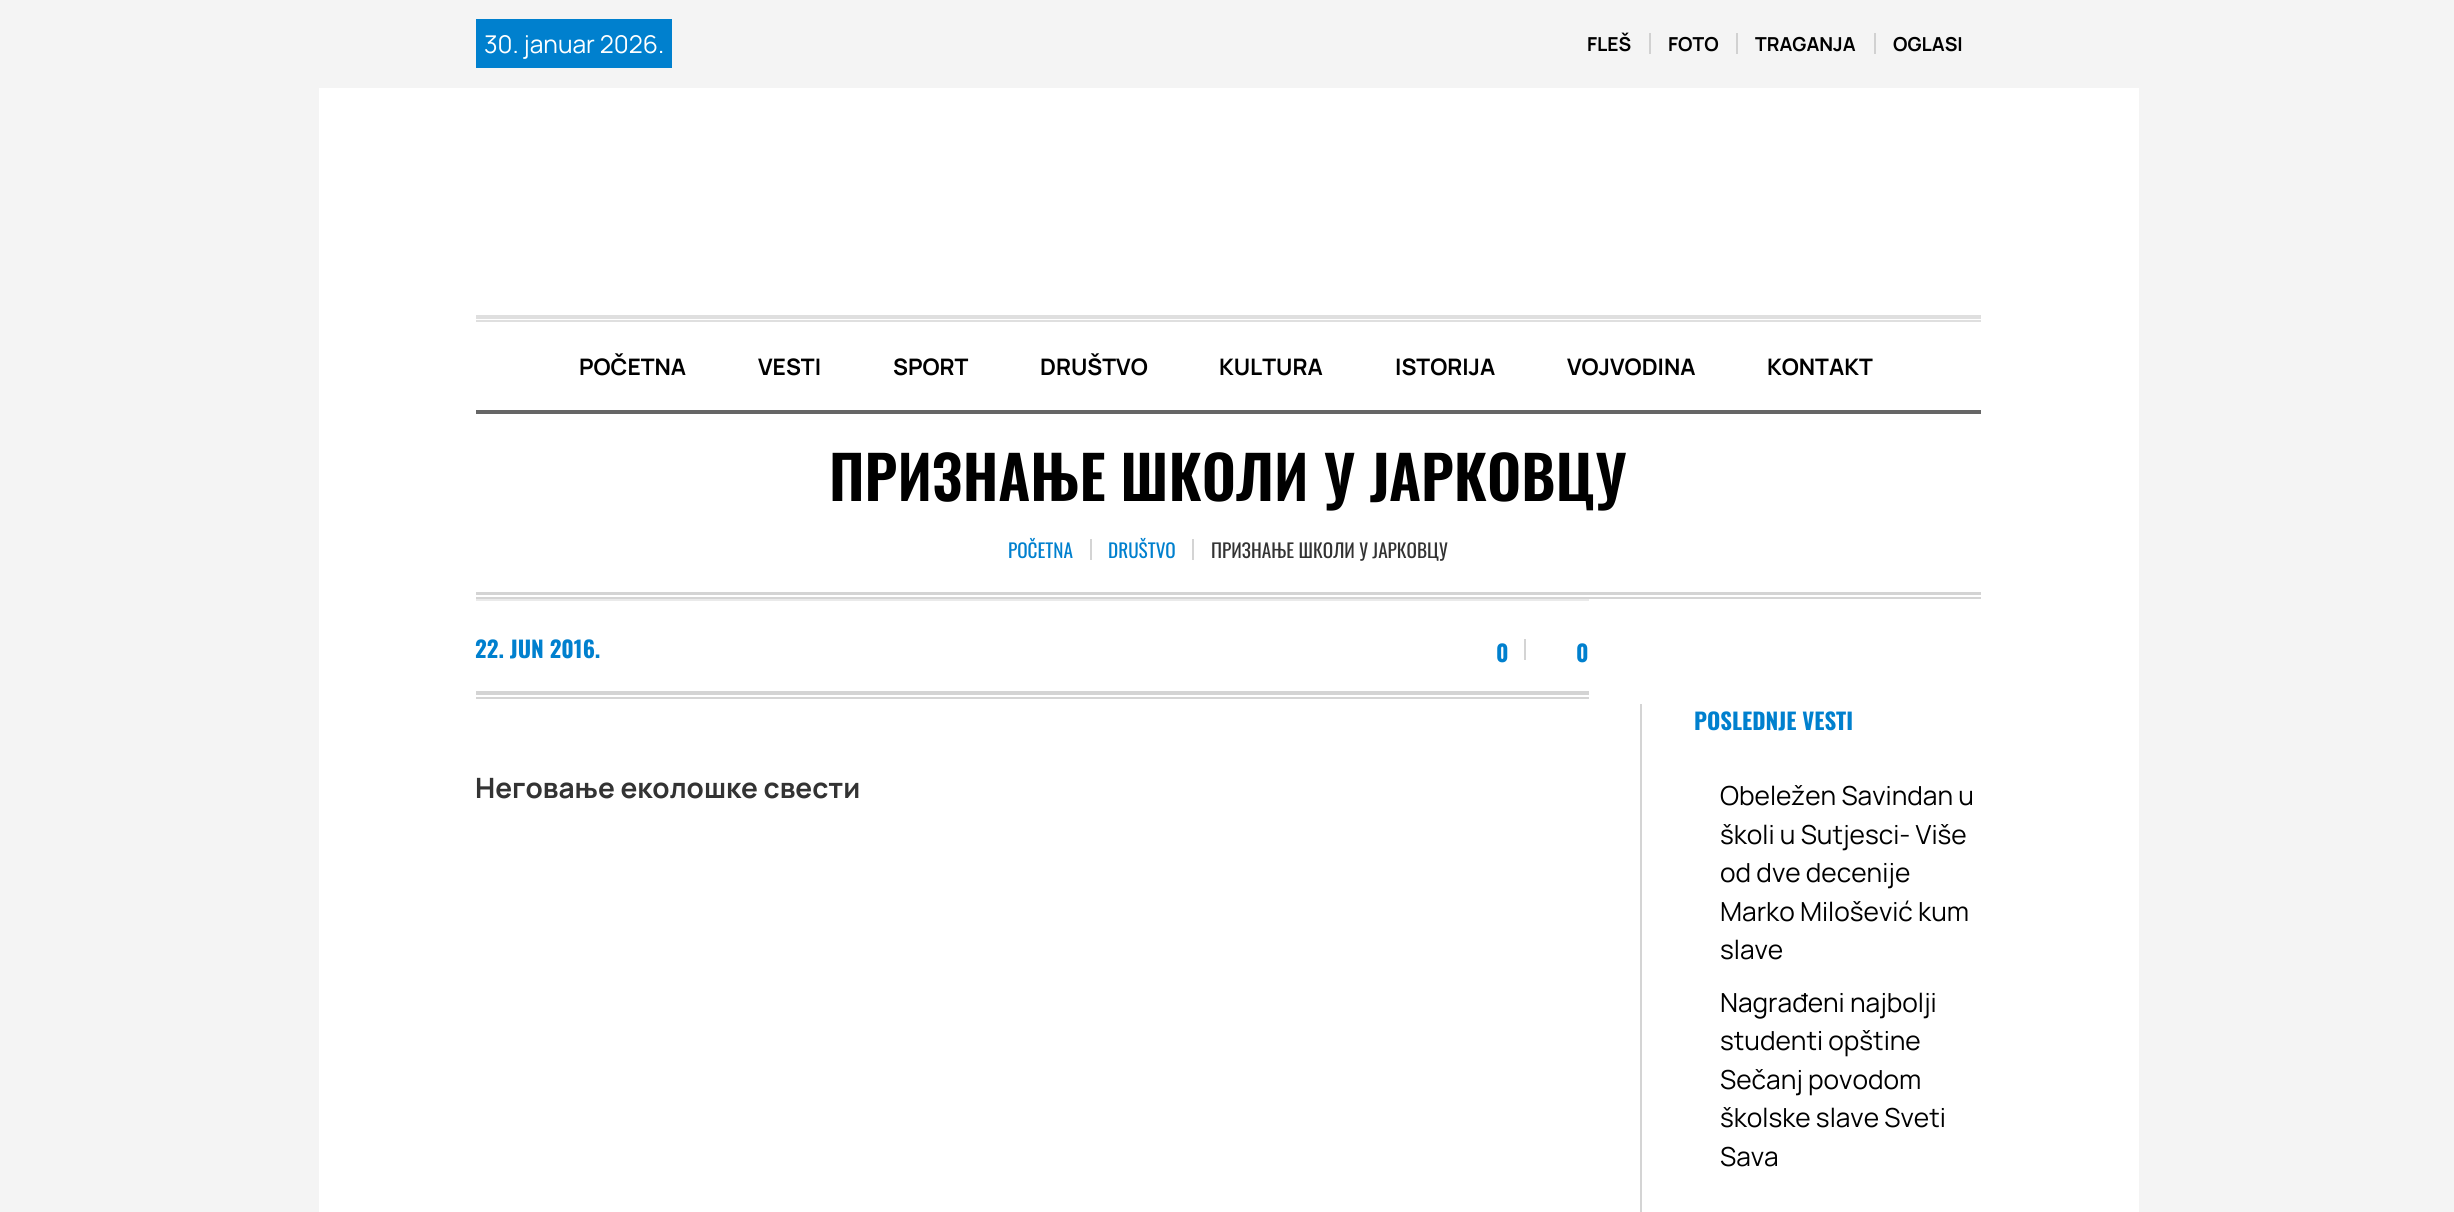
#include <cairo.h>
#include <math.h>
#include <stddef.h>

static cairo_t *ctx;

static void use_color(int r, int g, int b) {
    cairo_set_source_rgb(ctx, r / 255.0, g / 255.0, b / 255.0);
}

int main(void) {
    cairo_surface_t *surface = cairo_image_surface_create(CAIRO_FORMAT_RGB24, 2454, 1212);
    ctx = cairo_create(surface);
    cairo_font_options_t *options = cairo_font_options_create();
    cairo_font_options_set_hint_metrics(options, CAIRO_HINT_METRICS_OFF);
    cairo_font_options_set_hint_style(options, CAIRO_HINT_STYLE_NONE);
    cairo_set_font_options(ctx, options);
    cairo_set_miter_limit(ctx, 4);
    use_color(244, 244, 244);
    cairo_paint(ctx);
    use_color(0, 128, 206);
    cairo_rectangle(ctx, 476, 19, 196, 49);
    cairo_fill(ctx);
    cairo_select_font_face(ctx, "Manrope", CAIRO_FONT_SLANT_NORMAL, CAIRO_FONT_WEIGHT_NORMAL);
    cairo_set_font_size(ctx, 24.5);
    use_color(255, 255, 255);
    cairo_move_to(ctx, 484, 53);
    cairo_show_text(ctx, "30. januar 2026.");
    cairo_select_font_face(ctx, "Manrope", CAIRO_FONT_SLANT_NORMAL, CAIRO_FONT_WEIGHT_BOLD);
    cairo_set_font_size(ctx, 19.25);
    use_color(0, 0, 0);
    cairo_move_to(ctx, 1587, 51);
    cairo_show_text(ctx, "FLEŠ");
    use_color(209, 209, 209);
    cairo_rectangle(ctx, 1649, 33, 2, 21);
    cairo_fill(ctx);
    use_color(0, 0, 0);
    cairo_move_to(ctx, 1668, 51);
    cairo_show_text(ctx, "FOTO");
    use_color(209, 209, 209);
    cairo_rectangle(ctx, 1736, 33, 2, 21);
    cairo_fill(ctx);
    use_color(0, 0, 0);
    cairo_move_to(ctx, 1755, 51);
    cairo_show_text(ctx, "TRAGANJA");
    use_color(209, 209, 209);
    cairo_rectangle(ctx, 1874, 33, 2, 21);
    cairo_fill(ctx);
    use_color(0, 0, 0);
    cairo_move_to(ctx, 1893, 51);
    cairo_show_text(ctx, "OGLASI");
    use_color(255, 255, 255);
    cairo_rectangle(ctx, 319, 88, 1820, 1124);
    cairo_fill(ctx);
    use_color(223, 223, 223);
    cairo_rectangle(ctx, 476, 320, 1505, 2);
    cairo_fill(ctx);
    cairo_rectangle(ctx, 476, 315, 1505, 4);
    cairo_fill(ctx);
    use_color(102, 102, 102);
    cairo_rectangle(ctx, 476, 410, 1505, 4);
    cairo_fill(ctx);
    cairo_set_font_size(ctx, 22.75);
    use_color(0, 0, 0);
    cairo_move_to(ctx, 579, 375);
    cairo_show_text(ctx, "POČETNA");
    cairo_move_to(ctx, 758, 375);
    cairo_show_text(ctx, "VESTI");
    cairo_move_to(ctx, 893, 375);
    cairo_show_text(ctx, "SPORT");
    cairo_move_to(ctx, 1040, 375);
    cairo_show_text(ctx, "DRUŠTVO");
    cairo_move_to(ctx, 1219, 375);
    cairo_show_text(ctx, "KULTURA");
    cairo_move_to(ctx, 1395, 375);
    cairo_show_text(ctx, "ISTORIJA");
    cairo_move_to(ctx, 1567, 375);
    cairo_show_text(ctx, "VOJVODINA");
    cairo_move_to(ctx, 1767, 375);
    cairo_show_text(ctx, "KONTAKT");
    use_color(212, 212, 212);
    cairo_rectangle(ctx, 476, 592, 1505, 3);
    cairo_fill(ctx);
    cairo_rectangle(ctx, 476, 597, 1505, 2);
    cairo_fill(ctx);
    cairo_select_font_face(ctx, "Oswald SemiBold", CAIRO_FONT_SLANT_NORMAL, CAIRO_FONT_WEIGHT_NORMAL);
    cairo_set_font_size(ctx, 59.5);
    use_color(0, 0, 0);
    cairo_move_to(ctx, 829, 501);
    cairo_show_text(ctx, "ПРИЗНАЊЕ ШКОЛИ У ЈАРКОВЦУ");
    cairo_select_font_face(ctx, "Oswald", CAIRO_FONT_SLANT_NORMAL, CAIRO_FONT_WEIGHT_NORMAL);
    cairo_set_font_size(ctx, 19.25);
    use_color(0, 128, 206);
    cairo_move_to(ctx, 1008, 558);
    cairo_show_text(ctx, "POČETNA");
    use_color(212, 212, 212);
    cairo_rectangle(ctx, 1090, 539, 2, 21);
    cairo_fill(ctx);
    use_color(0, 128, 206);
    cairo_move_to(ctx, 1108, 558);
    cairo_show_text(ctx, "DRUŠTVO");
    use_color(212, 212, 212);
    cairo_rectangle(ctx, 1192, 539, 2, 21);
    cairo_fill(ctx);
    use_color(51, 51, 51);
    cairo_move_to(ctx, 1211, 558);
    cairo_show_text(ctx, "ПРИЗНАЊЕ ШКОЛИ У ЈАРКОВЦУ");
    use_color(212, 212, 212);
    cairo_rectangle(ctx, 476, 691, 1113, 4);
    cairo_fill(ctx);
    cairo_rectangle(ctx, 476, 697, 1113, 2);
    cairo_fill(ctx);
    use_color(234, 234, 234);
    cairo_rectangle(ctx, 476, 599, 1113, 2);
    cairo_fill(ctx);
    cairo_select_font_face(ctx, "Oswald", CAIRO_FONT_SLANT_NORMAL, CAIRO_FONT_WEIGHT_BOLD);
    cairo_set_font_size(ctx, 22.75);
    use_color(0, 128, 206);
    cairo_move_to(ctx, 475, 658);
    cairo_show_text(ctx, "22. JUN 2016.");
    cairo_move_to(ctx, 1496, 662);
    cairo_show_text(ctx, "0");
    use_color(212, 212, 212);
    cairo_rectangle(ctx, 1524, 639, 2, 21);
    cairo_fill(ctx);
    use_color(0, 128, 206);
    cairo_move_to(ctx, 1576, 662);
    cairo_show_text(ctx, "0");
    cairo_select_font_face(ctx, "Manrope", CAIRO_FONT_SLANT_NORMAL, CAIRO_FONT_WEIGHT_BOLD);
    cairo_set_font_size(ctx, 28);
    use_color(51, 51, 51);
    cairo_move_to(ctx, 475, 798);
    cairo_show_text(ctx, "Неговање еколошке свести");
    use_color(212, 212, 212);
    cairo_rectangle(ctx, 1640, 704, 2, 508);
    cairo_fill(ctx);
    cairo_select_font_face(ctx, "Oswald", CAIRO_FONT_SLANT_NORMAL, CAIRO_FONT_WEIGHT_BOLD);
    cairo_set_font_size(ctx, 22.75);
    use_color(0, 128, 206);
    cairo_move_to(ctx, 1694, 730);
    cairo_show_text(ctx, "POSLEDNJE VESTI");
    cairo_select_font_face(ctx, "Manrope", CAIRO_FONT_SLANT_NORMAL, CAIRO_FONT_WEIGHT_NORMAL);
    cairo_set_font_size(ctx, 26.25);
    use_color(0, 0, 0);
    cairo_move_to(ctx, 1720, 805);
    cairo_show_text(ctx, "Obeležen Savindan u");
    cairo_move_to(ctx, 1720, 844);
    cairo_show_text(ctx, "školi u Sutjesci- Više");
    cairo_move_to(ctx, 1720, 882);
    cairo_show_text(ctx, "od dve decenije");
    cairo_move_to(ctx, 1720, 921);
    cairo_show_text(ctx, "Marko Milošević kum");
    cairo_move_to(ctx, 1720, 959);
    cairo_show_text(ctx, "slave");
    cairo_move_to(ctx, 1720, 1012);
    cairo_show_text(ctx, "Nagrađeni najbolji");
    cairo_move_to(ctx, 1720, 1050);
    cairo_show_text(ctx, "studenti opštine");
    cairo_move_to(ctx, 1720, 1089);
    cairo_show_text(ctx, "Sečanj povodom");
    cairo_move_to(ctx, 1720, 1127);
    cairo_show_text(ctx, "školske slave Sveti");
    cairo_move_to(ctx, 1720, 1166);
    cairo_show_text(ctx, "Sava");
    cairo_surface_write_to_png(surface, "result.png");
    cairo_font_options_destroy(options);
    cairo_destroy(ctx);
    cairo_surface_destroy(surface);
    return 0;
}
